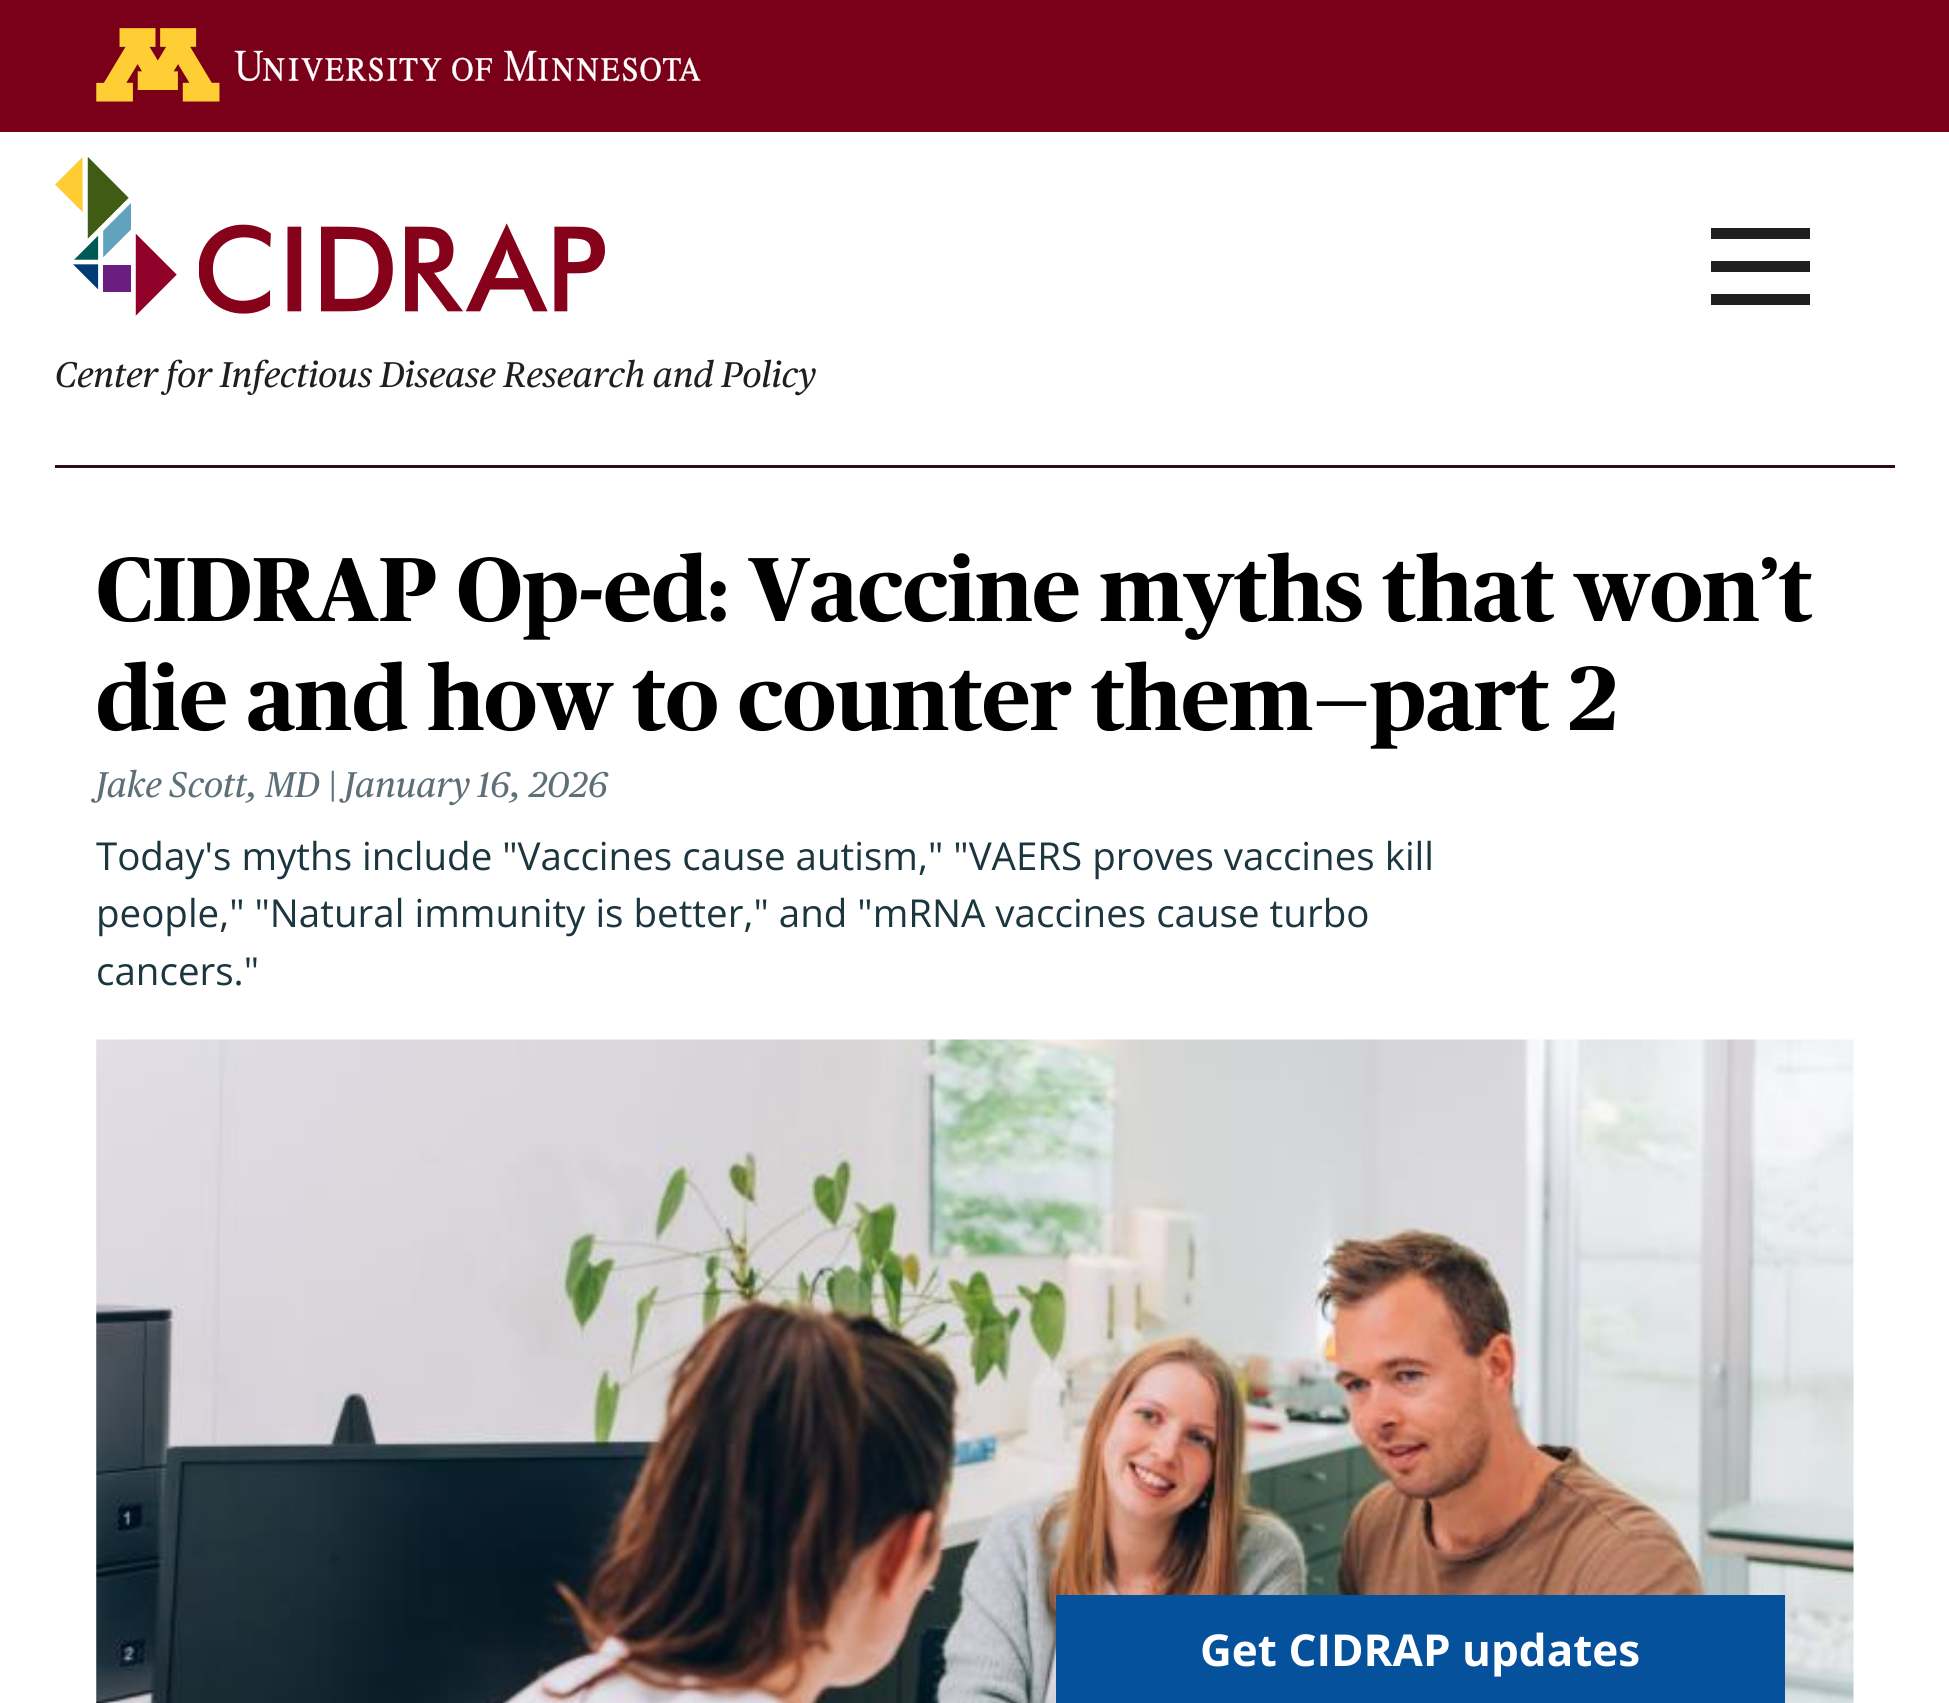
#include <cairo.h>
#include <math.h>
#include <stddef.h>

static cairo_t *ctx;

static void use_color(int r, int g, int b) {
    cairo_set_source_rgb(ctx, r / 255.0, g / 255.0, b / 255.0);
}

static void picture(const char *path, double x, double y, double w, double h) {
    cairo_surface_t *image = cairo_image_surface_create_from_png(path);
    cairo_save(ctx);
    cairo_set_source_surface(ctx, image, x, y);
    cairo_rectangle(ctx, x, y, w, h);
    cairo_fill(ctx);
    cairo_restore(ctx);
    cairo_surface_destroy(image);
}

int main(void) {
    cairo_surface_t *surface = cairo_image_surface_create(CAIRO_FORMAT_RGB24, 1949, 1703);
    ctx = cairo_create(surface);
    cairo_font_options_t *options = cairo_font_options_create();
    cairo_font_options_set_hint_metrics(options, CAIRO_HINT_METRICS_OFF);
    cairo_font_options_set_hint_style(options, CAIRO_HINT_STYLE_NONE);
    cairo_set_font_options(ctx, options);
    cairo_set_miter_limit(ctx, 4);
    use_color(255, 255, 255);
    cairo_paint(ctx);
    use_color(122, 0, 25);
    cairo_rectangle(ctx, 0, 0, 1949, 132);
    cairo_fill(ctx);
    picture("img1.png", 96, 28, 605, 74);
    use_color(31, 31, 31);
    cairo_rectangle(ctx, 1711, 228, 99, 11);
    cairo_fill(ctx);
    cairo_rectangle(ctx, 1711, 261, 99, 11);
    cairo_fill(ctx);
    cairo_rectangle(ctx, 1711, 294, 99, 11);
    cairo_fill(ctx);
    picture("img2.png", 55, 157, 550, 159);
    use_color(44, 15, 21);
    cairo_rectangle(ctx, 55, 465, 1840, 3);
    cairo_fill(ctx);
    cairo_select_font_face(ctx, "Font", CAIRO_FONT_SLANT_ITALIC, CAIRO_FONT_WEIGHT_NORMAL);
    cairo_set_font_size(ctx, 35.75);
    use_color(31, 31, 31);
    cairo_move_to(ctx, 55, 387);
    cairo_show_text(ctx, "Center for Infectious Disease Research and Policy");
    cairo_select_font_face(ctx, "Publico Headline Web", CAIRO_FONT_SLANT_NORMAL, CAIRO_FONT_WEIGHT_BOLD);
    cairo_set_font_size(ctx, 90.75);
    use_color(0, 0, 0);
    cairo_move_to(ctx, 96, 621);
    cairo_show_text(ctx, "CIDRAP Op-ed: Vaccine myths that won’t");
    cairo_move_to(ctx, 96, 730);
    cairo_show_text(ctx, "die and how to counter them—part 2");
    cairo_select_font_face(ctx, "Font", CAIRO_FONT_SLANT_ITALIC, CAIRO_FONT_WEIGHT_NORMAL);
    cairo_set_font_size(ctx, 35.75);
    use_color(94, 112, 119);
    cairo_move_to(ctx, 96, 797);
    cairo_show_text(ctx, "Jake Scott, MD | January 16, 2026");
    cairo_select_font_face(ctx, "Open Sans", CAIRO_FONT_SLANT_NORMAL, CAIRO_FONT_WEIGHT_NORMAL);
    cairo_set_font_size(ctx, 38.5);
    use_color(28, 54, 64);
    cairo_move_to(ctx, 96, 870);
    cairo_show_text(ctx, "Today's myths include \"Vaccines cause autism,\" \"VAERS proves vaccines kill");
    cairo_move_to(ctx, 96, 927);
    cairo_show_text(ctx, "people,\" \"Natural immunity is better,\" and \"mRNA vaccines cause turbo");
    cairo_move_to(ctx, 96, 985);
    cairo_show_text(ctx, "cancers.\"");
    picture("img3.png", 96, 1039, 1758, 664);
    use_color(6, 81, 155);
    cairo_rectangle(ctx, 1056, 1595, 729, 108);
    cairo_fill(ctx);
    cairo_select_font_face(ctx, "Open Sans", CAIRO_FONT_SLANT_NORMAL, CAIRO_FONT_WEIGHT_BOLD);
    cairo_set_font_size(ctx, 44);
    use_color(255, 255, 255);
    cairo_move_to(ctx, 1200, 1666);
    cairo_show_text(ctx, "Get CIDRAP updates");
    cairo_surface_write_to_png(surface, "result.png");
    cairo_font_options_destroy(options);
    cairo_destroy(ctx);
    cairo_surface_destroy(surface);
    return 0;
}
